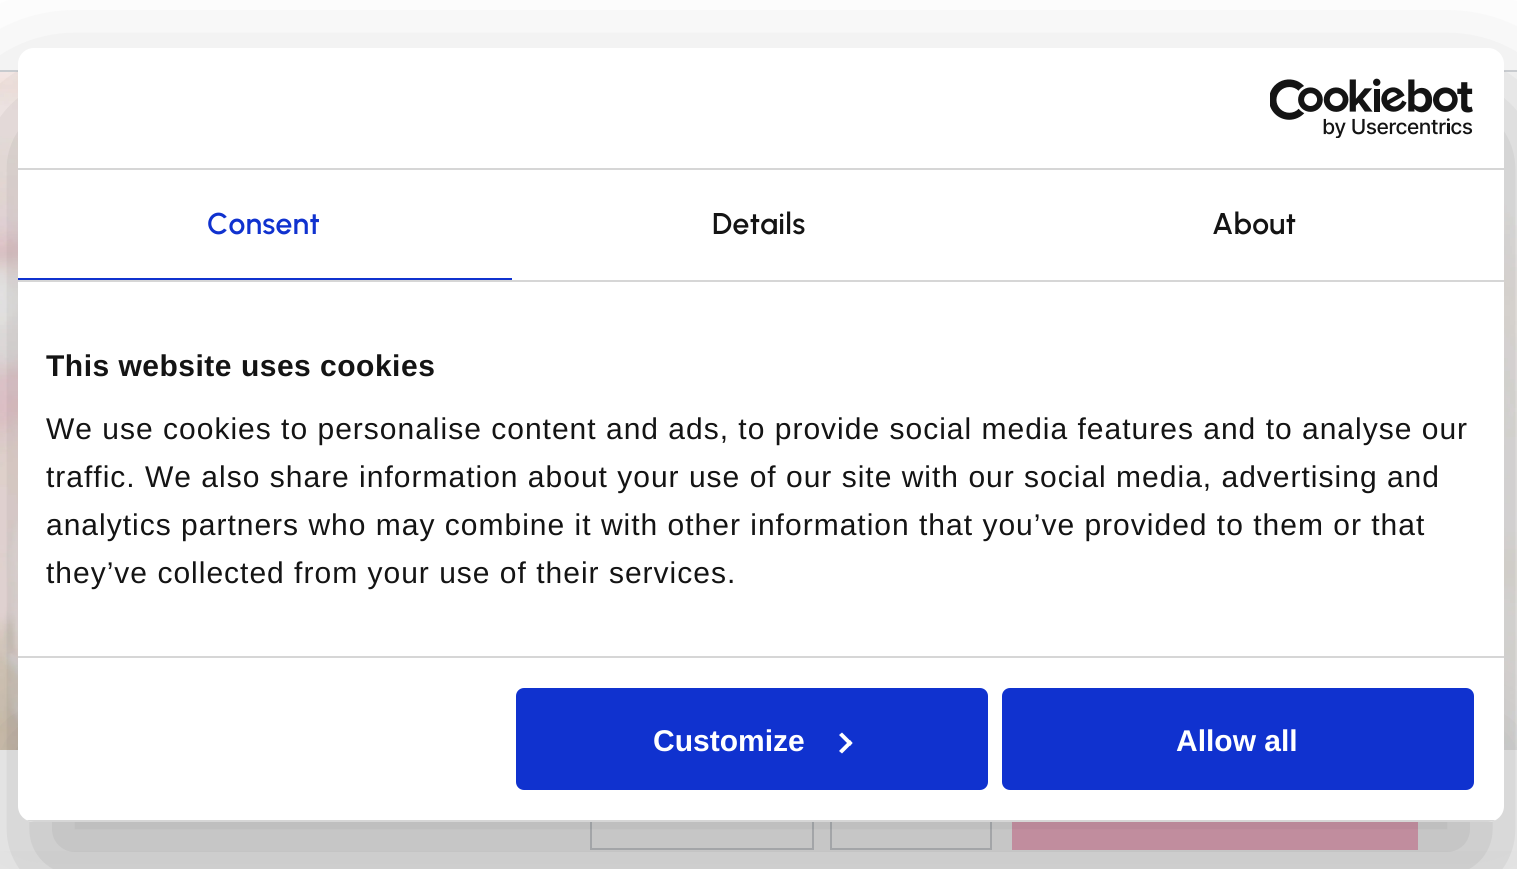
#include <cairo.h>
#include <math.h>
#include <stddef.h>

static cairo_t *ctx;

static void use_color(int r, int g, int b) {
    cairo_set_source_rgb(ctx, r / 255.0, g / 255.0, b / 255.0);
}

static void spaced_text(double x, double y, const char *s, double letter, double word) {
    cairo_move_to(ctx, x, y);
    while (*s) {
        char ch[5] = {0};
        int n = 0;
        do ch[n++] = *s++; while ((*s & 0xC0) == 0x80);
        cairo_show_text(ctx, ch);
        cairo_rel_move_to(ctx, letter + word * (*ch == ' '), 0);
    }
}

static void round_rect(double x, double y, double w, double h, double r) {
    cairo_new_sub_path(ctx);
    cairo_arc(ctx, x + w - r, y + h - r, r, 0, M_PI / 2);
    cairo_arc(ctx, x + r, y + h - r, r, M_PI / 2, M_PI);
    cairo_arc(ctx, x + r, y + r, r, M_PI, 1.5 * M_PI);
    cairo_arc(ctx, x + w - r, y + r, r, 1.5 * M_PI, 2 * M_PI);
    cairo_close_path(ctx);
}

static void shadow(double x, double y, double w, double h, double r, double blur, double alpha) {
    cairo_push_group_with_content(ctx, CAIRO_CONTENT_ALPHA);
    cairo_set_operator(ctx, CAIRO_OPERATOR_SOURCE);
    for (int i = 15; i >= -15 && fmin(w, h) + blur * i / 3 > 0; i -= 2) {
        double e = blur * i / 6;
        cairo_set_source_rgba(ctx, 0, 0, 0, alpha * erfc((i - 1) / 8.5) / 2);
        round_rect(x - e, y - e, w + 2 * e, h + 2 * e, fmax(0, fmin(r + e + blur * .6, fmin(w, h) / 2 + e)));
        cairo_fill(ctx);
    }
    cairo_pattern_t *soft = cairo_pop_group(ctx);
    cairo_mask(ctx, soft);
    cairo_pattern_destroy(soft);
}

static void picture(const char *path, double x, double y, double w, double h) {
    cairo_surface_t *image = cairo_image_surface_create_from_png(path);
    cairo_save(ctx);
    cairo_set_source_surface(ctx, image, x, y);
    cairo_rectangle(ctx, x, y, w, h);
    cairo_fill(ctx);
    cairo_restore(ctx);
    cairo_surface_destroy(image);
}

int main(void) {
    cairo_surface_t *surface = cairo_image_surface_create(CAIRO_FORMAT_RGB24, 1517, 869);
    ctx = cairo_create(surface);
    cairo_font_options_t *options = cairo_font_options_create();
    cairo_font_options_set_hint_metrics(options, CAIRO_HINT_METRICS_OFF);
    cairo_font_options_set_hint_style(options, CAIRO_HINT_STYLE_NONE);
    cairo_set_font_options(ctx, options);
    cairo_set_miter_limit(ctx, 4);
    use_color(255, 255, 255);
    cairo_paint(ctx);
    use_color(210, 213, 217);
    cairo_rectangle(ctx, 0, 70, 1517, 2);
    cairo_fill(ctx);
    picture("img1.png", 0, 72, 1517, 678);
    use_color(33, 35, 38);
    shadow(30, 750, 1458, 40, 20, 40, 0.2);
    use_color(255, 255, 255);
    cairo_rectangle(ctx, 0, 750, 1517, 101);
    cairo_fill(ctx);
    cairo_rectangle(ctx, 591, 771, 222, 78);
    use_color(210, 213, 217);
    cairo_stroke(ctx);
    cairo_rectangle(ctx, 831, 771, 160, 78);
    cairo_stroke(ctx);
    use_color(248, 182, 204);
    cairo_rectangle(ctx, 1012, 822, 406, 28);
    cairo_fill(ctx);
    use_color(0, 0, 0);
    shadow(18, 112, 1486, 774, 16, 68, 0.3);
    use_color(255, 255, 255);
    round_rect(18, 48, 1486, 774, 16);
    cairo_fill(ctx);
    use_color(214, 214, 214);
    cairo_rectangle(ctx, 18, 168, 1486, 2);
    cairo_fill(ctx);
    picture("img2.png", 1270, 78, 203, 60);
    cairo_rectangle(ctx, 18, 280, 1486, 2);
    cairo_fill(ctx);
    use_color(16, 50, 207);
    cairo_rectangle(ctx, 18, 278, 494, 2);
    cairo_fill(ctx);
    cairo_select_font_face(ctx, "Urbanist SemiBold", CAIRO_FONT_SLANT_NORMAL, CAIRO_FONT_WEIGHT_NORMAL);
    cairo_set_font_size(ctx, 30);
    spaced_text(207, 234, "Consent", 0.25, 0);
    use_color(20, 20, 20);
    spaced_text(712, 234, "Details", 0.25, 0);
    spaced_text(1212, 234, "About", 0.25, 0);
    use_color(214, 214, 214);
    cairo_rectangle(ctx, 18, 656, 1486, 2);
    cairo_fill(ctx);
    cairo_select_font_face(ctx, "Liberation Sans", CAIRO_FONT_SLANT_NORMAL, CAIRO_FONT_WEIGHT_BOLD);
    use_color(20, 20, 20);
    spaced_text(46, 376, "This website uses cookies", 0.5, 0);
    cairo_select_font_face(ctx, "Liberation Sans", CAIRO_FONT_SLANT_NORMAL, CAIRO_FONT_WEIGHT_NORMAL);
    spaced_text(46, 439, "We use cookies to personalise content and ads, to provide social media features and to analyse our", 1, 0);
    spaced_text(46, 487, "traffic. We also share information about your use of our site with our social media, advertising and", 1, 0);
    spaced_text(46, 535, "analytics partners who may combine it with other information that you’ve provided to them or that", 1, 0);
    spaced_text(46, 583, "they’ve collected from your use of their services.", 1, 0);
    cairo_save(ctx);
    round_rect(18, 48, 1486, 774, 16);
    cairo_clip(ctx);
    use_color(214, 214, 214);
    cairo_rectangle(ctx, 18, 820, 1486, 2);
    cairo_fill(ctx);
    cairo_restore(ctx);
    use_color(16, 50, 207);
    round_rect(518, 690, 468, 98, 6);
    cairo_fill_preserve(ctx);
    cairo_set_line_width(ctx, 4);
    cairo_stroke(ctx);
    cairo_select_font_face(ctx, "Liberation Sans", CAIRO_FONT_SLANT_NORMAL, CAIRO_FONT_WEIGHT_BOLD);
    use_color(255, 255, 255);
    cairo_move_to(ctx, 653, 751);
    cairo_show_text(ctx, "Customize");
    cairo_new_path(ctx);
    cairo_move_to(ctx, 842, 732.5);
    cairo_line_to(ctx, 852.5, 743);
    cairo_line_to(ctx, 850, 746);
    cairo_line_to(ctx, 839, 735);
    cairo_close_path(ctx);
    cairo_fill(ctx);
    cairo_new_path(ctx);
    cairo_move_to(ctx, 850, 740);
    cairo_line_to(ctx, 852.5, 743);
    cairo_line_to(ctx, 842, 753.5);
    cairo_line_to(ctx, 839, 751);
    cairo_close_path(ctx);
    cairo_fill(ctx);
    use_color(16, 50, 207);
    round_rect(1004, 690, 468, 98, 6);
    cairo_fill_preserve(ctx);
    cairo_stroke(ctx);
    use_color(255, 255, 255);
    cairo_move_to(ctx, 1176, 751);
    cairo_show_text(ctx, "Allow all");
    cairo_surface_write_to_png(surface, "result.png");
    cairo_font_options_destroy(options);
    cairo_destroy(ctx);
    cairo_surface_destroy(surface);
    return 0;
}
